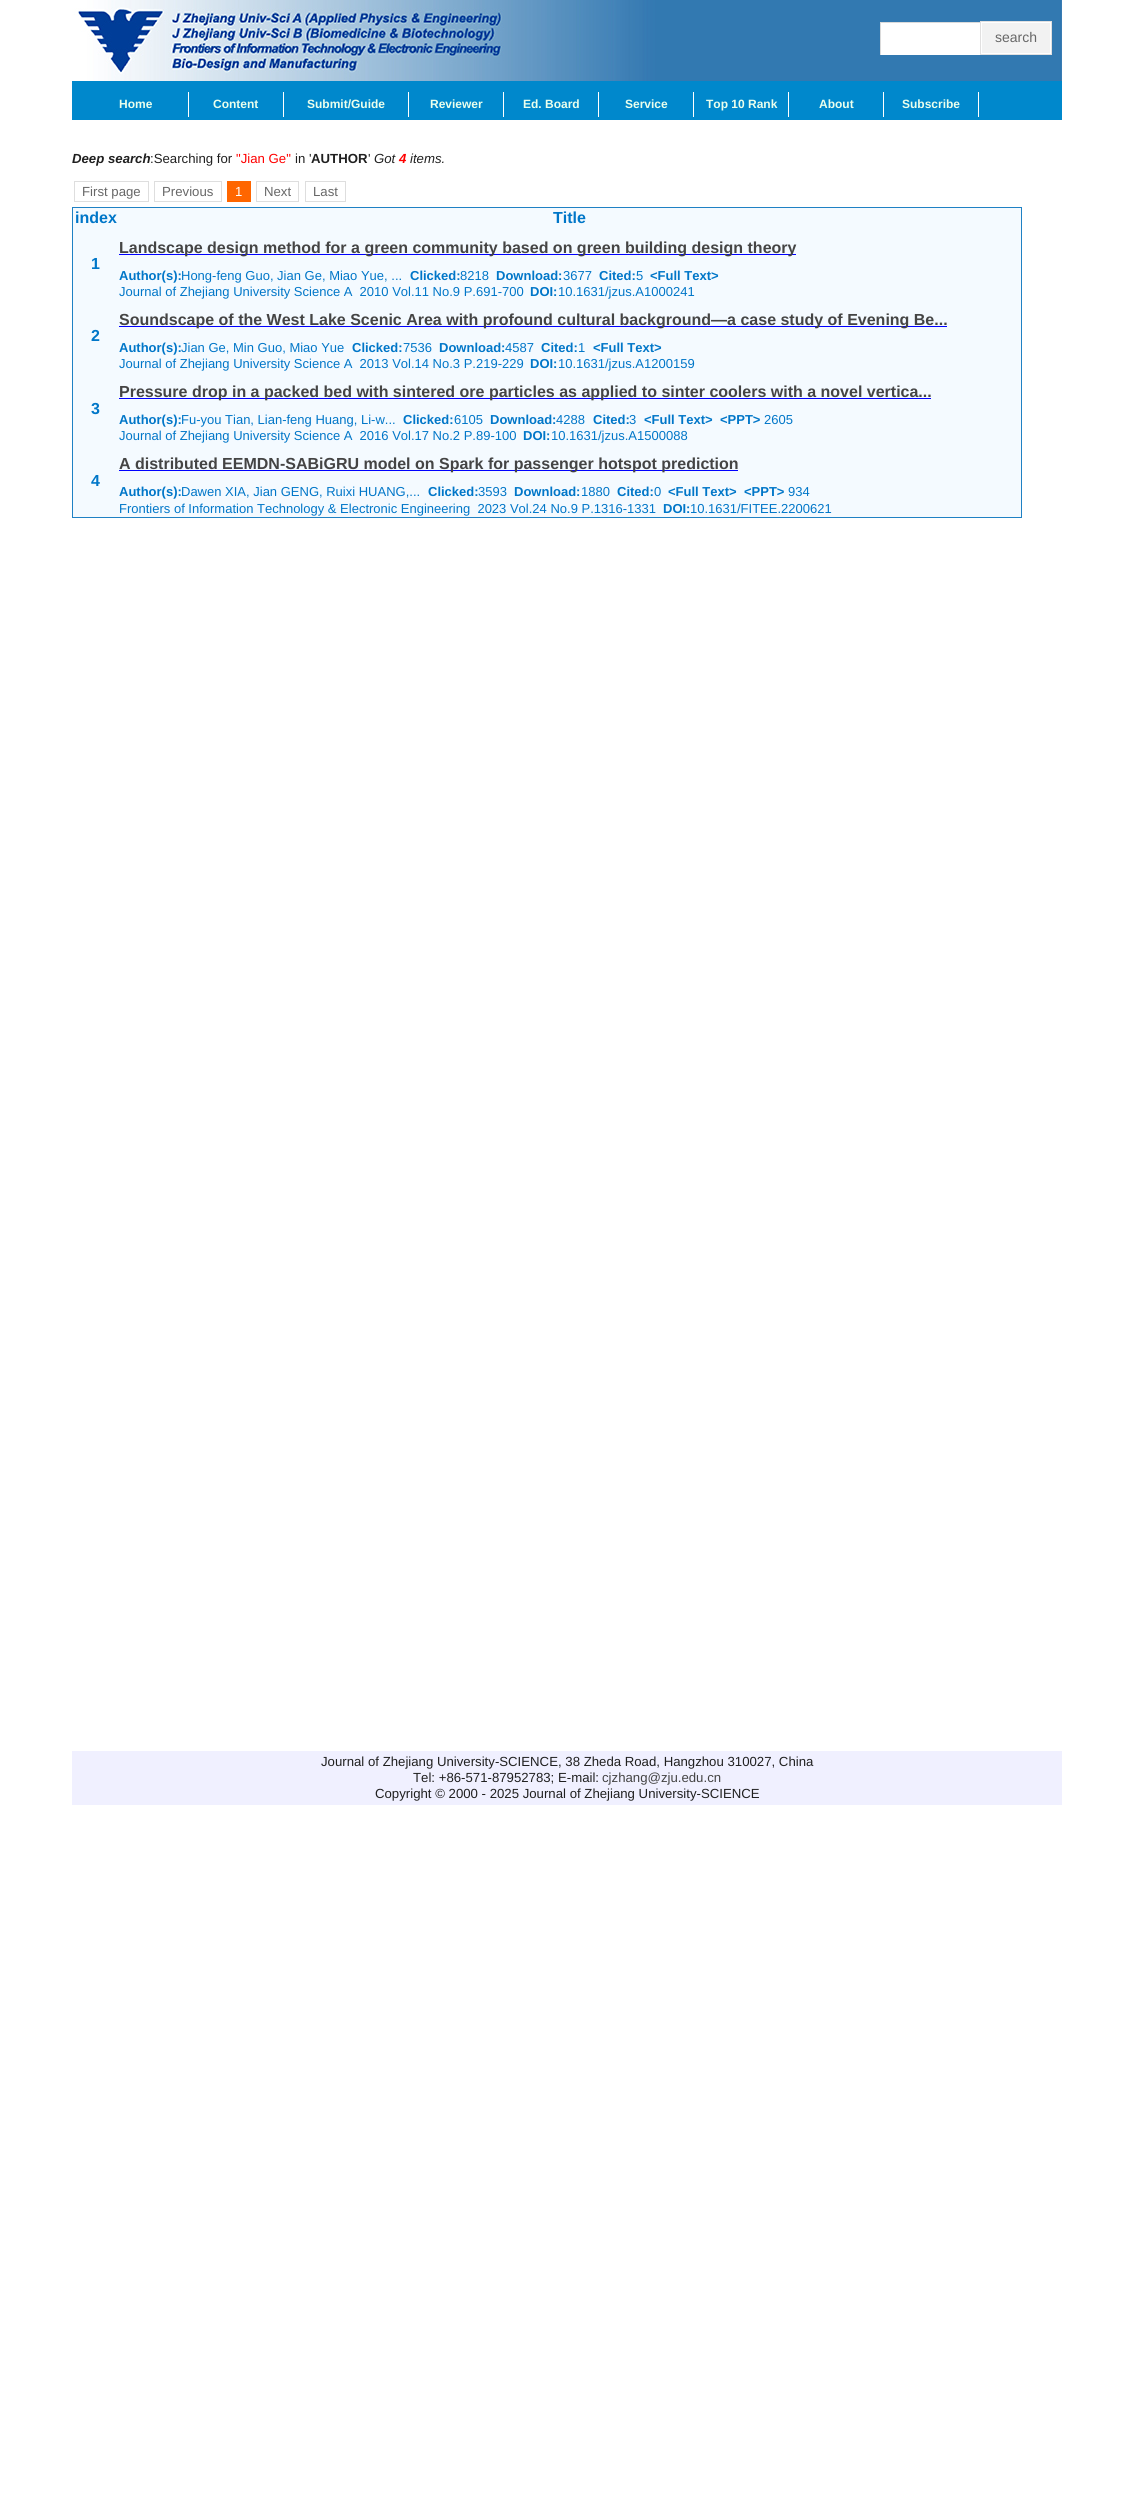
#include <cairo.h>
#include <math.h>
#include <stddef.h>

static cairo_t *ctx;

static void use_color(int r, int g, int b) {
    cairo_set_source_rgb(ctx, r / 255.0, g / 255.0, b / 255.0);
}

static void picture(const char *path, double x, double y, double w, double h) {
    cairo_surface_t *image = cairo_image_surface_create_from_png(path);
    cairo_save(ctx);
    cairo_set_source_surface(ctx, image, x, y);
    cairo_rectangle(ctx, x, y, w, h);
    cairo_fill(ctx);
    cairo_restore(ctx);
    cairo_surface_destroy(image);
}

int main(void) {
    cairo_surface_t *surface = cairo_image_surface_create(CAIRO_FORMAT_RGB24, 1134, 2493);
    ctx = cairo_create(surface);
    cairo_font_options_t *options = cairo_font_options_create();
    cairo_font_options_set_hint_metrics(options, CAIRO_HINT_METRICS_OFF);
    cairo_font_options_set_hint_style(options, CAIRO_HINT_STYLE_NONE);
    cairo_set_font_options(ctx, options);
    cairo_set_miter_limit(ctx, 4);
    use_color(255, 255, 255);
    cairo_paint(ctx);
    picture("img1.png", 72, 0, 990, 81);
    use_color(255, 255, 255);
    cairo_rectangle(ctx, 881, 23, 99, 32);
    cairo_fill(ctx);
    use_color(218, 218, 218);
    cairo_rectangle(ctx, 880, 22, 101, 1);
    cairo_fill(ctx);
    cairo_rectangle(ctx, 880, 22, 1, 33);
    cairo_fill(ctx);
    use_color(242, 242, 242);
    cairo_rectangle(ctx, 981.5, 22.5, 69, 31);
    cairo_fill_preserve(ctx);
    use_color(255, 255, 255);
    cairo_set_line_width(ctx, 1);
    cairo_stroke(ctx);
    cairo_rectangle(ctx, 980.5, 21.5, 71, 33);
    use_color(225, 224, 224);
    cairo_stroke(ctx);
    cairo_select_font_face(ctx, "Liberation Sans", CAIRO_FONT_SLANT_NORMAL, CAIRO_FONT_WEIGHT_NORMAL);
    cairo_set_font_size(ctx, 14);
    use_color(103, 103, 103);
    cairo_move_to(ctx, 995, 42);
    cairo_show_text(ctx, "search");
    use_color(0, 136, 204);
    cairo_rectangle(ctx, 72, 81, 990, 39);
    cairo_fill(ctx);
    use_color(255, 255, 255);
    cairo_rectangle(ctx, 188, 92, 1, 25);
    cairo_fill(ctx);
    cairo_select_font_face(ctx, "Liberation Sans", CAIRO_FONT_SLANT_NORMAL, CAIRO_FONT_WEIGHT_BOLD);
    cairo_set_font_size(ctx, 12);
    use_color(234, 255, 237);
    cairo_move_to(ctx, 119, 108);
    cairo_show_text(ctx, "Home");
    use_color(255, 255, 255);
    cairo_rectangle(ctx, 283, 92, 1, 25);
    cairo_fill(ctx);
    use_color(234, 255, 237);
    cairo_move_to(ctx, 213, 108);
    cairo_show_text(ctx, "Content");
    use_color(255, 255, 255);
    cairo_rectangle(ctx, 408, 92, 1, 25);
    cairo_fill(ctx);
    use_color(234, 255, 237);
    cairo_move_to(ctx, 307, 108);
    cairo_show_text(ctx, "Submit/Guide");
    use_color(255, 255, 255);
    cairo_rectangle(ctx, 503, 92, 1, 25);
    cairo_fill(ctx);
    use_color(234, 255, 237);
    cairo_move_to(ctx, 430, 108);
    cairo_show_text(ctx, "Reviewer");
    use_color(255, 255, 255);
    cairo_rectangle(ctx, 598, 92, 1, 25);
    cairo_fill(ctx);
    use_color(234, 255, 237);
    cairo_move_to(ctx, 523, 108);
    cairo_show_text(ctx, "Ed. Board");
    use_color(255, 255, 255);
    cairo_rectangle(ctx, 693, 92, 1, 25);
    cairo_fill(ctx);
    use_color(234, 255, 237);
    cairo_move_to(ctx, 625, 108);
    cairo_show_text(ctx, "Service");
    use_color(255, 255, 255);
    cairo_rectangle(ctx, 788, 92, 1, 25);
    cairo_fill(ctx);
    use_color(234, 255, 237);
    cairo_move_to(ctx, 706, 108);
    cairo_show_text(ctx, "Top 10 Rank");
    use_color(255, 255, 255);
    cairo_rectangle(ctx, 883, 92, 1, 25);
    cairo_fill(ctx);
    use_color(234, 255, 237);
    cairo_move_to(ctx, 819, 108);
    cairo_show_text(ctx, "About");
    use_color(255, 255, 255);
    cairo_rectangle(ctx, 978, 92, 1, 25);
    cairo_fill(ctx);
    use_color(234, 255, 237);
    cairo_move_to(ctx, 902, 108);
    cairo_show_text(ctx, "Subscribe");
    cairo_select_font_face(ctx, "Liberation Sans", CAIRO_FONT_SLANT_ITALIC, CAIRO_FONT_WEIGHT_BOLD);
    cairo_set_font_size(ctx, 13.2);
    use_color(32, 32, 32);
    cairo_move_to(ctx, 72, 163);
    cairo_show_text(ctx, "Deep search");
    cairo_select_font_face(ctx, "Liberation Sans", CAIRO_FONT_SLANT_NORMAL, CAIRO_FONT_WEIGHT_NORMAL);
    cairo_move_to(ctx, 150, 163);
    cairo_show_text(ctx, ":Searching for");
    use_color(255, 0, 0);
    cairo_move_to(ctx, 236, 163);
    cairo_show_text(ctx, "\"Jian Ge\"");
    use_color(32, 32, 32);
    cairo_move_to(ctx, 295, 163);
    cairo_show_text(ctx, "in '");
    cairo_select_font_face(ctx, "Liberation Sans", CAIRO_FONT_SLANT_NORMAL, CAIRO_FONT_WEIGHT_BOLD);
    cairo_move_to(ctx, 311, 163);
    cairo_show_text(ctx, "AUTHOR");
    cairo_select_font_face(ctx, "Liberation Sans", CAIRO_FONT_SLANT_NORMAL, CAIRO_FONT_WEIGHT_NORMAL);
    cairo_move_to(ctx, 368, 163);
    cairo_show_text(ctx, "'");
    cairo_select_font_face(ctx, "Liberation Sans", CAIRO_FONT_SLANT_ITALIC, CAIRO_FONT_WEIGHT_NORMAL);
    cairo_move_to(ctx, 374, 163);
    cairo_show_text(ctx, "Got");
    cairo_select_font_face(ctx, "Liberation Sans", CAIRO_FONT_SLANT_ITALIC, CAIRO_FONT_WEIGHT_BOLD);
    use_color(255, 0, 0);
    cairo_move_to(ctx, 399, 163);
    cairo_show_text(ctx, "4");
    cairo_select_font_face(ctx, "Liberation Sans", CAIRO_FONT_SLANT_ITALIC, CAIRO_FONT_WEIGHT_NORMAL);
    use_color(32, 32, 32);
    cairo_move_to(ctx, 410, 163);
    cairo_show_text(ctx, "items.");
    cairo_rectangle(ctx, 74.5, 181.5, 74, 20);
    use_color(222, 222, 222);
    cairo_stroke(ctx);
    cairo_select_font_face(ctx, "Liberation Sans", CAIRO_FONT_SLANT_NORMAL, CAIRO_FONT_WEIGHT_NORMAL);
    use_color(103, 103, 103);
    cairo_move_to(ctx, 82, 196);
    cairo_show_text(ctx, "First page");
    cairo_rectangle(ctx, 154.5, 181.5, 67, 20);
    use_color(222, 222, 222);
    cairo_stroke(ctx);
    use_color(103, 103, 103);
    cairo_move_to(ctx, 162, 196);
    cairo_show_text(ctx, "Previous");
    use_color(255, 102, 0);
    cairo_rectangle(ctx, 227, 181, 24, 21);
    cairo_fill(ctx);
    use_color(255, 255, 255);
    cairo_move_to(ctx, 235, 196);
    cairo_show_text(ctx, "1");
    cairo_rectangle(ctx, 256.5, 181.5, 42, 20);
    use_color(222, 222, 222);
    cairo_stroke(ctx);
    use_color(103, 103, 103);
    cairo_move_to(ctx, 264, 196);
    cairo_show_text(ctx, "Next");
    cairo_rectangle(ctx, 305.5, 181.5, 40, 20);
    use_color(222, 222, 222);
    cairo_stroke(ctx);
    use_color(103, 103, 103);
    cairo_move_to(ctx, 313, 196);
    cairo_show_text(ctx, "Last");
    use_color(31, 129, 196);
    cairo_rectangle(ctx, 72, 207, 950, 1);
    cairo_fill(ctx);
    cairo_rectangle(ctx, 1021, 207, 1, 311);
    cairo_fill(ctx);
    cairo_rectangle(ctx, 72, 517, 950, 1);
    cairo_fill(ctx);
    cairo_rectangle(ctx, 72, 207, 1, 311);
    cairo_fill(ctx);
    use_color(244, 250, 255);
    cairo_rectangle(ctx, 73, 208, 948, 309);
    cairo_fill(ctx);
    cairo_select_font_face(ctx, "Liberation Sans", CAIRO_FONT_SLANT_NORMAL, CAIRO_FONT_WEIGHT_BOLD);
    cairo_set_font_size(ctx, 16);
    use_color(0, 118, 200);
    cairo_move_to(ctx, 75, 223);
    cairo_show_text(ctx, "index");
    cairo_move_to(ctx, 553, 223);
    cairo_show_text(ctx, "Title");
    cairo_move_to(ctx, 91, 269);
    cairo_show_text(ctx, "1");
    use_color(0, 0, 255);
    cairo_rectangle(ctx, 119, 254, 677, 1);
    cairo_fill(ctx);
    use_color(68, 68, 68);
    cairo_move_to(ctx, 119, 253);
    cairo_show_text(ctx, "Landscape design method for a green community based on green building design theory");
    cairo_set_font_size(ctx, 13);
    use_color(0, 118, 200);
    cairo_move_to(ctx, 119, 280);
    cairo_show_text(ctx, "Author(s):");
    cairo_select_font_face(ctx, "Liberation Sans", CAIRO_FONT_SLANT_NORMAL, CAIRO_FONT_WEIGHT_NORMAL);
    cairo_move_to(ctx, 181, 280);
    cairo_show_text(ctx, "Hong-feng Guo, Jian Ge, Miao Yue, ...");
    cairo_select_font_face(ctx, "Liberation Sans", CAIRO_FONT_SLANT_NORMAL, CAIRO_FONT_WEIGHT_BOLD);
    cairo_move_to(ctx, 410, 280);
    cairo_show_text(ctx, "Clicked:");
    cairo_select_font_face(ctx, "Liberation Sans", CAIRO_FONT_SLANT_NORMAL, CAIRO_FONT_WEIGHT_NORMAL);
    cairo_move_to(ctx, 460, 280);
    cairo_show_text(ctx, "8218");
    cairo_select_font_face(ctx, "Liberation Sans", CAIRO_FONT_SLANT_NORMAL, CAIRO_FONT_WEIGHT_BOLD);
    cairo_move_to(ctx, 496, 280);
    cairo_show_text(ctx, "Download:");
    cairo_select_font_face(ctx, "Liberation Sans", CAIRO_FONT_SLANT_NORMAL, CAIRO_FONT_WEIGHT_NORMAL);
    cairo_move_to(ctx, 563, 280);
    cairo_show_text(ctx, "3677");
    cairo_select_font_face(ctx, "Liberation Sans", CAIRO_FONT_SLANT_NORMAL, CAIRO_FONT_WEIGHT_BOLD);
    cairo_move_to(ctx, 599, 280);
    cairo_show_text(ctx, "Cited:");
    cairo_select_font_face(ctx, "Liberation Sans", CAIRO_FONT_SLANT_NORMAL, CAIRO_FONT_WEIGHT_NORMAL);
    cairo_move_to(ctx, 636, 280);
    cairo_show_text(ctx, "5");
    cairo_select_font_face(ctx, "Liberation Sans", CAIRO_FONT_SLANT_NORMAL, CAIRO_FONT_WEIGHT_BOLD);
    cairo_move_to(ctx, 650, 280);
    cairo_show_text(ctx, "<Full Text>");
    cairo_select_font_face(ctx, "Liberation Sans", CAIRO_FONT_SLANT_NORMAL, CAIRO_FONT_WEIGHT_NORMAL);
    cairo_move_to(ctx, 119, 296);
    cairo_show_text(ctx, "Journal of Zhejiang University Science A  2010 Vol.11 No.9 P.691-700");
    cairo_select_font_face(ctx, "Liberation Sans", CAIRO_FONT_SLANT_NORMAL, CAIRO_FONT_WEIGHT_BOLD);
    cairo_move_to(ctx, 530, 296);
    cairo_show_text(ctx, "DOI:");
    cairo_select_font_face(ctx, "Liberation Sans", CAIRO_FONT_SLANT_NORMAL, CAIRO_FONT_WEIGHT_NORMAL);
    cairo_move_to(ctx, 558, 296);
    cairo_show_text(ctx, "10.1631/jzus.A1000241");
    cairo_select_font_face(ctx, "Liberation Sans", CAIRO_FONT_SLANT_NORMAL, CAIRO_FONT_WEIGHT_BOLD);
    cairo_set_font_size(ctx, 16);
    cairo_move_to(ctx, 91, 341);
    cairo_show_text(ctx, "2");
    use_color(0, 0, 255);
    cairo_rectangle(ctx, 119, 326, 828, 1);
    cairo_fill(ctx);
    use_color(68, 68, 68);
    cairo_move_to(ctx, 119, 325);
    cairo_show_text(ctx, "Soundscape of the West Lake Scenic Area with profound cultural background—a case study of Evening Be...");
    cairo_set_font_size(ctx, 13);
    use_color(0, 118, 200);
    cairo_move_to(ctx, 119, 352);
    cairo_show_text(ctx, "Author(s):");
    cairo_select_font_face(ctx, "Liberation Sans", CAIRO_FONT_SLANT_NORMAL, CAIRO_FONT_WEIGHT_NORMAL);
    cairo_move_to(ctx, 181, 352);
    cairo_show_text(ctx, "Jian Ge, Min Guo, Miao Yue");
    cairo_select_font_face(ctx, "Liberation Sans", CAIRO_FONT_SLANT_NORMAL, CAIRO_FONT_WEIGHT_BOLD);
    cairo_move_to(ctx, 352, 352);
    cairo_show_text(ctx, "Clicked:");
    cairo_select_font_face(ctx, "Liberation Sans", CAIRO_FONT_SLANT_NORMAL, CAIRO_FONT_WEIGHT_NORMAL);
    cairo_move_to(ctx, 403, 352);
    cairo_show_text(ctx, "7536");
    cairo_select_font_face(ctx, "Liberation Sans", CAIRO_FONT_SLANT_NORMAL, CAIRO_FONT_WEIGHT_BOLD);
    cairo_move_to(ctx, 439, 352);
    cairo_show_text(ctx, "Download:");
    cairo_select_font_face(ctx, "Liberation Sans", CAIRO_FONT_SLANT_NORMAL, CAIRO_FONT_WEIGHT_NORMAL);
    cairo_move_to(ctx, 505, 352);
    cairo_show_text(ctx, "4587");
    cairo_select_font_face(ctx, "Liberation Sans", CAIRO_FONT_SLANT_NORMAL, CAIRO_FONT_WEIGHT_BOLD);
    cairo_move_to(ctx, 541, 352);
    cairo_show_text(ctx, "Cited:");
    cairo_select_font_face(ctx, "Liberation Sans", CAIRO_FONT_SLANT_NORMAL, CAIRO_FONT_WEIGHT_NORMAL);
    cairo_move_to(ctx, 578, 352);
    cairo_show_text(ctx, "1");
    cairo_select_font_face(ctx, "Liberation Sans", CAIRO_FONT_SLANT_NORMAL, CAIRO_FONT_WEIGHT_BOLD);
    cairo_move_to(ctx, 593, 352);
    cairo_show_text(ctx, "<Full Text>");
    cairo_select_font_face(ctx, "Liberation Sans", CAIRO_FONT_SLANT_NORMAL, CAIRO_FONT_WEIGHT_NORMAL);
    cairo_move_to(ctx, 119, 368);
    cairo_show_text(ctx, "Journal of Zhejiang University Science A  2013 Vol.14 No.3 P.219-229");
    cairo_select_font_face(ctx, "Liberation Sans", CAIRO_FONT_SLANT_NORMAL, CAIRO_FONT_WEIGHT_BOLD);
    cairo_move_to(ctx, 530, 368);
    cairo_show_text(ctx, "DOI:");
    cairo_select_font_face(ctx, "Liberation Sans", CAIRO_FONT_SLANT_NORMAL, CAIRO_FONT_WEIGHT_NORMAL);
    cairo_move_to(ctx, 558, 368);
    cairo_show_text(ctx, "10.1631/jzus.A1200159");
    cairo_select_font_face(ctx, "Liberation Sans", CAIRO_FONT_SLANT_NORMAL, CAIRO_FONT_WEIGHT_BOLD);
    cairo_set_font_size(ctx, 16);
    cairo_move_to(ctx, 91, 414);
    cairo_show_text(ctx, "3");
    use_color(0, 0, 255);
    cairo_rectangle(ctx, 119, 398, 812, 1);
    cairo_fill(ctx);
    use_color(68, 68, 68);
    cairo_move_to(ctx, 119, 397);
    cairo_show_text(ctx, "Pressure drop in a packed bed with sintered ore particles as applied to sinter coolers with a novel vertica...");
    cairo_set_font_size(ctx, 13);
    use_color(0, 118, 200);
    cairo_move_to(ctx, 119, 424);
    cairo_show_text(ctx, "Author(s):");
    cairo_select_font_face(ctx, "Liberation Sans", CAIRO_FONT_SLANT_NORMAL, CAIRO_FONT_WEIGHT_NORMAL);
    cairo_move_to(ctx, 181, 424);
    cairo_show_text(ctx, "Fu-you Tian, Lian-feng Huang, Li-w...");
    cairo_select_font_face(ctx, "Liberation Sans", CAIRO_FONT_SLANT_NORMAL, CAIRO_FONT_WEIGHT_BOLD);
    cairo_move_to(ctx, 403, 424);
    cairo_show_text(ctx, "Clicked:");
    cairo_select_font_face(ctx, "Liberation Sans", CAIRO_FONT_SLANT_NORMAL, CAIRO_FONT_WEIGHT_NORMAL);
    cairo_move_to(ctx, 454, 424);
    cairo_show_text(ctx, "6105");
    cairo_select_font_face(ctx, "Liberation Sans", CAIRO_FONT_SLANT_NORMAL, CAIRO_FONT_WEIGHT_BOLD);
    cairo_move_to(ctx, 490, 424);
    cairo_show_text(ctx, "Download:");
    cairo_select_font_face(ctx, "Liberation Sans", CAIRO_FONT_SLANT_NORMAL, CAIRO_FONT_WEIGHT_NORMAL);
    cairo_move_to(ctx, 556, 424);
    cairo_show_text(ctx, "4288");
    cairo_select_font_face(ctx, "Liberation Sans", CAIRO_FONT_SLANT_NORMAL, CAIRO_FONT_WEIGHT_BOLD);
    cairo_move_to(ctx, 593, 424);
    cairo_show_text(ctx, "Cited:");
    cairo_select_font_face(ctx, "Liberation Sans", CAIRO_FONT_SLANT_NORMAL, CAIRO_FONT_WEIGHT_NORMAL);
    cairo_move_to(ctx, 629, 424);
    cairo_show_text(ctx, "3");
    cairo_select_font_face(ctx, "Liberation Sans", CAIRO_FONT_SLANT_NORMAL, CAIRO_FONT_WEIGHT_BOLD);
    cairo_move_to(ctx, 644, 424);
    cairo_show_text(ctx, "<Full Text>");
    cairo_move_to(ctx, 720, 424);
    cairo_show_text(ctx, "<PPT>");
    cairo_select_font_face(ctx, "Liberation Sans", CAIRO_FONT_SLANT_NORMAL, CAIRO_FONT_WEIGHT_NORMAL);
    cairo_move_to(ctx, 764, 424);
    cairo_show_text(ctx, "2605");
    cairo_move_to(ctx, 119, 440);
    cairo_show_text(ctx, "Journal of Zhejiang University Science A  2016 Vol.17 No.2 P.89-100");
    cairo_select_font_face(ctx, "Liberation Sans", CAIRO_FONT_SLANT_NORMAL, CAIRO_FONT_WEIGHT_BOLD);
    cairo_move_to(ctx, 523, 440);
    cairo_show_text(ctx, "DOI:");
    cairo_select_font_face(ctx, "Liberation Sans", CAIRO_FONT_SLANT_NORMAL, CAIRO_FONT_WEIGHT_NORMAL);
    cairo_move_to(ctx, 551, 440);
    cairo_show_text(ctx, "10.1631/jzus.A1500088");
    cairo_select_font_face(ctx, "Liberation Sans", CAIRO_FONT_SLANT_NORMAL, CAIRO_FONT_WEIGHT_BOLD);
    cairo_set_font_size(ctx, 16);
    cairo_move_to(ctx, 91, 486);
    cairo_show_text(ctx, "4");
    use_color(0, 0, 255);
    cairo_rectangle(ctx, 119, 470, 619, 1);
    cairo_fill(ctx);
    use_color(68, 68, 68);
    cairo_move_to(ctx, 119, 469);
    cairo_show_text(ctx, "A distributed EEMDN-SABiGRU model on Spark for passenger hotspot prediction");
    cairo_set_font_size(ctx, 13);
    use_color(0, 118, 200);
    cairo_move_to(ctx, 119, 496);
    cairo_show_text(ctx, "Author(s):");
    cairo_select_font_face(ctx, "Liberation Sans", CAIRO_FONT_SLANT_NORMAL, CAIRO_FONT_WEIGHT_NORMAL);
    cairo_move_to(ctx, 181, 496);
    cairo_show_text(ctx, "Dawen XIA, Jian GENG, Ruixi HUANG,...");
    cairo_select_font_face(ctx, "Liberation Sans", CAIRO_FONT_SLANT_NORMAL, CAIRO_FONT_WEIGHT_BOLD);
    cairo_move_to(ctx, 428, 496);
    cairo_show_text(ctx, "Clicked:");
    cairo_select_font_face(ctx, "Liberation Sans", CAIRO_FONT_SLANT_NORMAL, CAIRO_FONT_WEIGHT_NORMAL);
    cairo_move_to(ctx, 478, 496);
    cairo_show_text(ctx, "3593");
    cairo_select_font_face(ctx, "Liberation Sans", CAIRO_FONT_SLANT_NORMAL, CAIRO_FONT_WEIGHT_BOLD);
    cairo_move_to(ctx, 514, 496);
    cairo_show_text(ctx, "Download:");
    cairo_select_font_face(ctx, "Liberation Sans", CAIRO_FONT_SLANT_NORMAL, CAIRO_FONT_WEIGHT_NORMAL);
    cairo_move_to(ctx, 581, 496);
    cairo_show_text(ctx, "1880");
    cairo_select_font_face(ctx, "Liberation Sans", CAIRO_FONT_SLANT_NORMAL, CAIRO_FONT_WEIGHT_BOLD);
    cairo_move_to(ctx, 617, 496);
    cairo_show_text(ctx, "Cited:");
    cairo_select_font_face(ctx, "Liberation Sans", CAIRO_FONT_SLANT_NORMAL, CAIRO_FONT_WEIGHT_NORMAL);
    cairo_move_to(ctx, 654, 496);
    cairo_show_text(ctx, "0");
    cairo_select_font_face(ctx, "Liberation Sans", CAIRO_FONT_SLANT_NORMAL, CAIRO_FONT_WEIGHT_BOLD);
    cairo_move_to(ctx, 668, 496);
    cairo_show_text(ctx, "<Full Text>");
    cairo_move_to(ctx, 744, 496);
    cairo_show_text(ctx, "<PPT>");
    cairo_select_font_face(ctx, "Liberation Sans", CAIRO_FONT_SLANT_NORMAL, CAIRO_FONT_WEIGHT_NORMAL);
    cairo_move_to(ctx, 788, 496);
    cairo_show_text(ctx, "934");
    cairo_move_to(ctx, 119, 513);
    cairo_show_text(ctx, "Frontiers of Information Technology & Electronic Engineering  2023 Vol.24 No.9 P.1316-1331");
    cairo_select_font_face(ctx, "Liberation Sans", CAIRO_FONT_SLANT_NORMAL, CAIRO_FONT_WEIGHT_BOLD);
    cairo_move_to(ctx, 663, 513);
    cairo_show_text(ctx, "DOI:");
    cairo_select_font_face(ctx, "Liberation Sans", CAIRO_FONT_SLANT_NORMAL, CAIRO_FONT_WEIGHT_NORMAL);
    cairo_move_to(ctx, 690, 513);
    cairo_show_text(ctx, "10.1631/FITEE.2200621");
    use_color(240, 240, 255);
    cairo_rectangle(ctx, 72, 1751, 990, 54);
    cairo_fill(ctx);
    cairo_set_font_size(ctx, 13.2);
    use_color(32, 32, 32);
    cairo_move_to(ctx, 321, 1766);
    cairo_show_text(ctx, "Journal of Zhejiang University-SCIENCE, 38 Zheda Road, Hangzhou 310027, China");
    cairo_move_to(ctx, 413, 1782);
    cairo_show_text(ctx, "Tel: +86-571-87952783; E-mail:");
    use_color(68, 68, 68);
    cairo_move_to(ctx, 602, 1782);
    cairo_show_text(ctx, "cjzhang@zju.edu.cn");
    use_color(32, 32, 32);
    cairo_move_to(ctx, 375, 1798);
    cairo_show_text(ctx, "Copyright © 2000 - 2025 Journal of Zhejiang University-SCIENCE");
    cairo_surface_write_to_png(surface, "result.png");
    cairo_font_options_destroy(options);
    cairo_destroy(ctx);
    cairo_surface_destroy(surface);
    return 0;
}
